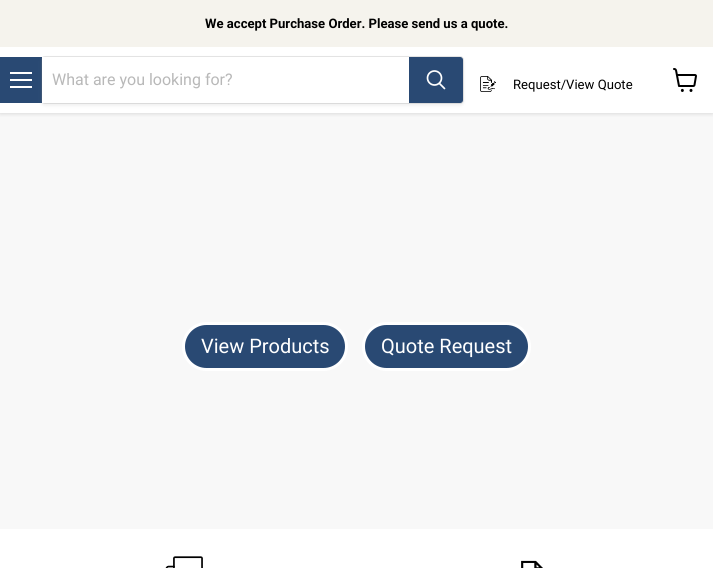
#include <cairo.h>
#include <math.h>
#include <stddef.h>

static cairo_t *ctx;

static void use_color(int r, int g, int b) {
    cairo_set_source_rgb(ctx, r / 255.0, g / 255.0, b / 255.0);
}

static void round_rect(double x, double y, double w, double h, double r) {
    cairo_new_sub_path(ctx);
    cairo_arc(ctx, x + w - r, y + h - r, r, 0, M_PI / 2);
    cairo_arc(ctx, x + r, y + h - r, r, M_PI / 2, M_PI);
    cairo_arc(ctx, x + r, y + r, r, M_PI, 1.5 * M_PI);
    cairo_arc(ctx, x + w - r, y + r, r, 1.5 * M_PI, 2 * M_PI);
    cairo_close_path(ctx);
}

static void shadow(double x, double y, double w, double h, double r, double blur, double alpha) {
    cairo_push_group_with_content(ctx, CAIRO_CONTENT_ALPHA);
    cairo_set_operator(ctx, CAIRO_OPERATOR_SOURCE);
    for (int i = 15; i >= -15 && fmin(w, h) + blur * i / 3 > 0; i -= 2) {
        double e = blur * i / 6;
        cairo_set_source_rgba(ctx, 0, 0, 0, alpha * erfc((i - 1) / 8.5) / 2);
        round_rect(x - e, y - e, w + 2 * e, h + 2 * e, fmax(0, fmin(r + e + blur * .6, fmin(w, h) / 2 + e)));
        cairo_fill(ctx);
    }
    cairo_pattern_t *soft = cairo_pop_group(ctx);
    cairo_mask(ctx, soft);
    cairo_pattern_destroy(soft);
}

static void picture(const char *path, double x, double y, double w, double h) {
    cairo_surface_t *image = cairo_image_surface_create_from_png(path);
    cairo_save(ctx);
    cairo_set_source_surface(ctx, image, x, y);
    cairo_rectangle(ctx, x, y, w, h);
    cairo_fill(ctx);
    cairo_restore(ctx);
    cairo_surface_destroy(image);
}

int main(void) {
    cairo_surface_t *surface = cairo_image_surface_create(CAIRO_FORMAT_RGB24, 713, 568);
    ctx = cairo_create(surface);
    cairo_font_options_t *options = cairo_font_options_create();
    cairo_font_options_set_hint_metrics(options, CAIRO_HINT_METRICS_OFF);
    cairo_font_options_set_hint_style(options, CAIRO_HINT_STYLE_NONE);
    cairo_set_font_options(ctx, options);
    cairo_set_miter_limit(ctx, 4);
    use_color(255, 255, 255);
    cairo_paint(ctx);
    use_color(248, 248, 248);
    cairo_rectangle(ctx, 0, 113, 713, 416);
    cairo_fill(ctx);
    cairo_save(ctx);
    cairo_rectangle(ctx, 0, 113, 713, 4);
    cairo_clip(ctx);
    use_color(128, 128, 128);
    shadow(0, 48, 713, 66, 0, 2, 0.25);
    cairo_restore(ctx);
    use_color(245, 243, 237);
    cairo_rectangle(ctx, 0, 0, 713, 47);
    cairo_fill(ctx);
    cairo_select_font_face(ctx, "Roboto", CAIRO_FONT_SLANT_NORMAL, CAIRO_FONT_WEIGHT_BOLD);
    cairo_set_font_size(ctx, 13.1);
    use_color(0, 0, 0);
    cairo_move_to(ctx, 205, 28);
    cairo_show_text(ctx, "We accept Purchase Order. Please send us a quote.");
    use_color(41, 73, 115);
    cairo_rectangle(ctx, 0, 57, 42, 46);
    cairo_fill(ctx);
    use_color(255, 255, 255);
    cairo_rectangle(ctx, 10, 72, 22, 2);
    cairo_fill(ctx);
    cairo_rectangle(ctx, 10, 79, 22, 2);
    cairo_fill(ctx);
    cairo_rectangle(ctx, 10, 86, 22, 2);
    cairo_fill(ctx);
    use_color(128, 128, 128);
    shadow(41, 58, 423, 48, 4, 1.5, 0.11);
    round_rect(41.5, 56.5, 422, 47, 3.5);
    cairo_set_source_rgba(ctx, 0.502, 0.502, 0.502, 0.2);
    cairo_set_line_width(ctx, 1);
    cairo_stroke(ctx);
    use_color(255, 255, 255);
    cairo_rectangle(ctx, 42, 57, 367, 46);
    cairo_fill(ctx);
    cairo_select_font_face(ctx, "Roboto", CAIRO_FONT_SLANT_NORMAL, CAIRO_FONT_WEIGHT_NORMAL);
    cairo_set_font_size(ctx, 16);
    use_color(184, 184, 184);
    cairo_move_to(ctx, 52, 85);
    cairo_show_text(ctx, "What are you looking for?");
    use_color(41, 73, 115);
    cairo_new_path(ctx);
    cairo_move_to(ctx, 409.5, 57.5);
    cairo_line_to(ctx, 460, 57.5);
    cairo_curve_to(ctx, 461.5, 57.5, 462.5, 58.5, 462.5, 60);
    cairo_line_to(ctx, 462.5, 100);
    cairo_curve_to(ctx, 462.5, 101.5, 461.5, 102.5, 460, 102.5);
    cairo_line_to(ctx, 409.5, 102.5);
    cairo_close_path(ctx);
    cairo_fill_preserve(ctx);
    cairo_stroke(ctx);
    cairo_new_path(ctx);
    cairo_move_to(ctx, 444.5, 88.5);
    cairo_line_to(ctx, 439.5, 83.5);
    use_color(255, 255, 255);
    cairo_set_line_width(ctx, 1.7);
    cairo_set_line_cap(ctx, CAIRO_LINE_CAP_ROUND);
    cairo_stroke(ctx);
    cairo_arc(ctx, 434.5, 78, 7, 0, 2 * M_PI);
    cairo_set_line_cap(ctx, CAIRO_LINE_CAP_BUTT);
    cairo_stroke(ctx);
    picture("img1.png", 480, 76, 16, 16);
    cairo_set_font_size(ctx, 13.1);
    use_color(0, 0, 0);
    cairo_move_to(ctx, 513, 89);
    cairo_show_text(ctx, "Request/View Quote");
    picture("img2.png", 673, 68, 24, 24);
    use_color(41, 73, 115);
    round_rect(183.5, 323.5, 163, 46, 23);
    cairo_fill_preserve(ctx);
    use_color(255, 255, 255);
    cairo_set_line_width(ctx, 3);
    cairo_stroke(ctx);
    cairo_set_font_size(ctx, 20);
    cairo_move_to(ctx, 201, 353);
    cairo_show_text(ctx, "View Products");
    use_color(41, 73, 115);
    round_rect(363.5, 323.5, 166, 46, 23);
    cairo_fill_preserve(ctx);
    use_color(255, 255, 255);
    cairo_stroke(ctx);
    cairo_move_to(ctx, 381, 353);
    cairo_show_text(ctx, "Quote Request");
    picture("img3.png", 165, 556, 38, 12);
    picture("img4.png", 521, 560, 22, 8);
    cairo_surface_write_to_png(surface, "result.png");
    cairo_font_options_destroy(options);
    cairo_destroy(ctx);
    cairo_surface_destroy(surface);
    return 0;
}
